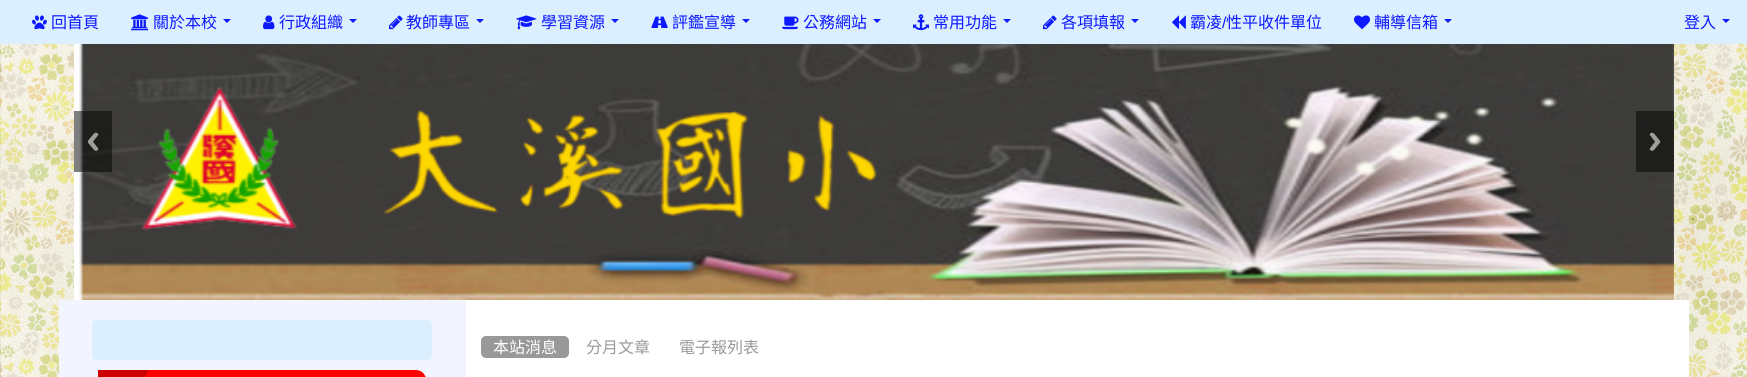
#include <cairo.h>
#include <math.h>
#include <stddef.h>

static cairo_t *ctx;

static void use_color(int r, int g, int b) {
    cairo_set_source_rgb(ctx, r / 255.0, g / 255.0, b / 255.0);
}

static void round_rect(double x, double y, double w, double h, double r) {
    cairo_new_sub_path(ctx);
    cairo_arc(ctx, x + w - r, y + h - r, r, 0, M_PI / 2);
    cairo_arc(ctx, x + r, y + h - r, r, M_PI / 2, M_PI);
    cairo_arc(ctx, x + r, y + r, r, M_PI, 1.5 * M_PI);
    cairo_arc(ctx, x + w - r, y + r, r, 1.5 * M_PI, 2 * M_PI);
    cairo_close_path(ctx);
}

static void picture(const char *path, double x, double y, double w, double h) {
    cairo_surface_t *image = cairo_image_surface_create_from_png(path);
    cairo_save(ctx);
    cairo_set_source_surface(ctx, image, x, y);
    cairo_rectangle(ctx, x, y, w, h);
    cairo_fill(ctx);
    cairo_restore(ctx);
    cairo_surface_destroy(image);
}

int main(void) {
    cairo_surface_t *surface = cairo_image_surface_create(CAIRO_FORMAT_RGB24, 1747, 377);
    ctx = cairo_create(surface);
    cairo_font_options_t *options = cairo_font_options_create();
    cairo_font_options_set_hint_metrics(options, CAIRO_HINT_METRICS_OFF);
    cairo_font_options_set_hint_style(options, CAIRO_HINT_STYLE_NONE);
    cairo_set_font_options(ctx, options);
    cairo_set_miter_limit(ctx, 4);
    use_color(255, 255, 255);
    cairo_paint(ctx);
    picture("img1.png", 0, 44, 1747, 333);
    use_color(255, 255, 255);
    cairo_rectangle(ctx, 74, 44, 1600, 256);
    cairo_fill(ctx);
    use_color(219, 239, 255);
    cairo_rectangle(ctx, 0, 0, 1747, 44);
    cairo_fill(ctx);
    picture("img2.png", 32, 15, 15, 15);
    cairo_select_font_face(ctx, "Noto Sans CJK TC", CAIRO_FONT_SLANT_NORMAL, CAIRO_FONT_WEIGHT_NORMAL);
    cairo_set_font_size(ctx, 16);
    use_color(13, 25, 255);
    cairo_move_to(ctx, 51, 28);
    cairo_show_text(ctx, "回首頁");
    picture("img3.png", 131, 14, 18, 17);
    cairo_move_to(ctx, 153, 28);
    cairo_show_text(ctx, "關於本校");
    cairo_new_path(ctx);
    cairo_move_to(ctx, 223, 19);
    cairo_line_to(ctx, 231, 19);
    cairo_line_to(ctx, 227, 23);
    cairo_close_path(ctx);
    cairo_fill(ctx);
    picture("img4.png", 263, 15, 12, 15);
    cairo_move_to(ctx, 279, 28);
    cairo_show_text(ctx, "行政組織");
    cairo_new_path(ctx);
    cairo_move_to(ctx, 349, 19);
    cairo_line_to(ctx, 357, 19);
    cairo_line_to(ctx, 353, 23);
    cairo_close_path(ctx);
    cairo_fill(ctx);
    picture("img5.png", 389, 15, 14, 15);
    cairo_move_to(ctx, 406, 28);
    cairo_show_text(ctx, "教師專區");
    cairo_new_path(ctx);
    cairo_move_to(ctx, 476, 19);
    cairo_line_to(ctx, 484, 19);
    cairo_line_to(ctx, 480, 23);
    cairo_close_path(ctx);
    cairo_fill(ctx);
    picture("img6.png", 516, 15, 21, 15);
    cairo_move_to(ctx, 541, 28);
    cairo_show_text(ctx, "學習資源");
    cairo_new_path(ctx);
    cairo_move_to(ctx, 611, 19);
    cairo_line_to(ctx, 619, 19);
    cairo_line_to(ctx, 615, 23);
    cairo_close_path(ctx);
    cairo_fill(ctx);
    picture("img7.png", 651, 16, 17, 12);
    cairo_move_to(ctx, 672, 28);
    cairo_show_text(ctx, "評鑑宣導");
    cairo_new_path(ctx);
    cairo_move_to(ctx, 742, 19);
    cairo_line_to(ctx, 750, 19);
    cairo_line_to(ctx, 746, 23);
    cairo_close_path(ctx);
    cairo_fill(ctx);
    picture("img8.png", 782, 16, 17, 14);
    cairo_move_to(ctx, 803, 28);
    cairo_show_text(ctx, "公務網站");
    cairo_new_path(ctx);
    cairo_move_to(ctx, 873, 19);
    cairo_line_to(ctx, 881, 19);
    cairo_line_to(ctx, 877, 23);
    cairo_close_path(ctx);
    cairo_fill(ctx);
    picture("img9.png", 913, 14, 16, 17);
    cairo_move_to(ctx, 933, 28);
    cairo_show_text(ctx, "常用功能");
    cairo_new_path(ctx);
    cairo_move_to(ctx, 1003, 19);
    cairo_line_to(ctx, 1011, 19);
    cairo_line_to(ctx, 1007, 23);
    cairo_close_path(ctx);
    cairo_fill(ctx);
    picture("img5.png", 1043, 15, 14, 15);
    cairo_move_to(ctx, 1061, 28);
    cairo_show_text(ctx, "各項填報");
    cairo_new_path(ctx);
    cairo_move_to(ctx, 1131, 19);
    cairo_line_to(ctx, 1139, 19);
    cairo_line_to(ctx, 1135, 23);
    cairo_close_path(ctx);
    cairo_fill(ctx);
    picture("img10.png", 1172, 15, 14, 15);
    cairo_move_to(ctx, 1190, 28);
    cairo_show_text(ctx, "霸凌");
    cairo_select_font_face(ctx, "Liberation Sans", CAIRO_FONT_SLANT_NORMAL, CAIRO_FONT_WEIGHT_NORMAL);
    cairo_move_to(ctx, 1222, 28);
    cairo_show_text(ctx, "/");
    cairo_select_font_face(ctx, "Noto Sans CJK TC", CAIRO_FONT_SLANT_NORMAL, CAIRO_FONT_WEIGHT_NORMAL);
    cairo_move_to(ctx, 1226, 28);
    cairo_show_text(ctx, "性平收件單位");
    picture("img11.png", 1354, 15, 16, 15);
    cairo_move_to(ctx, 1374, 28);
    cairo_show_text(ctx, "輔導信箱");
    cairo_new_path(ctx);
    cairo_move_to(ctx, 1444, 19);
    cairo_line_to(ctx, 1452, 19);
    cairo_line_to(ctx, 1448, 23);
    cairo_close_path(ctx);
    cairo_fill(ctx);
    cairo_move_to(ctx, 1684, 28);
    cairo_show_text(ctx, "登入");
    cairo_new_path(ctx);
    cairo_move_to(ctx, 1722, 19);
    cairo_line_to(ctx, 1730, 19);
    cairo_line_to(ctx, 1726, 23);
    cairo_close_path(ctx);
    cairo_fill(ctx);
    picture("img12.png", 79, 44, 1595, 256);
    picture("img13.png", 74, 111, 38, 61);
    picture("img14.png", 1636, 111, 38, 61);
    use_color(255, 255, 255);
    cairo_rectangle(ctx, 466, 300, 1223, 77);
    cairo_fill(ctx);
    use_color(242, 244, 255);
    cairo_rectangle(ctx, 59, 300, 407, 77);
    cairo_fill(ctx);
    use_color(219, 239, 255);
    round_rect(92, 320, 340, 40, 5);
    cairo_fill(ctx);
    use_color(255, 0, 0);
    cairo_new_path(ctx);
    cairo_move_to(ctx, 98, 370);
    cairo_line_to(ctx, 416, 370);
    cairo_curve_to(ctx, 421.5, 370, 426, 374.5, 426, 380);
    cairo_line_to(ctx, 426, 377);
    cairo_curve_to(ctx, 426, 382.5, 421.5, 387, 416, 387);
    cairo_line_to(ctx, 98, 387);
    cairo_close_path(ctx);
    cairo_fill(ctx);
    cairo_save(ctx);
    cairo_rectangle(ctx, 98, 370, 328, 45);
    cairo_clip(ctx);
    use_color(204, 0, 0);
    cairo_new_path(ctx);
    cairo_move_to(ctx, 71, 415);
    cairo_line_to(ctx, 110, 348);
    cairo_line_to(ctx, 149, 370);
    cairo_line_to(ctx, 110, 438);
    cairo_close_path(ctx);
    cairo_fill(ctx);
    cairo_restore(ctx);
    use_color(153, 153, 153);
    round_rect(481, 336, 88, 22, 5);
    cairo_fill(ctx);
    use_color(255, 255, 255);
    cairo_move_to(ctx, 493, 353);
    cairo_show_text(ctx, "本站消息");
    use_color(153, 153, 153);
    cairo_move_to(ctx, 586, 353);
    cairo_show_text(ctx, "分月文章");
    cairo_move_to(ctx, 679, 353);
    cairo_show_text(ctx, "電子報列表");
    cairo_surface_write_to_png(surface, "result.png");
    cairo_font_options_destroy(options);
    cairo_destroy(ctx);
    cairo_surface_destroy(surface);
    return 0;
}
